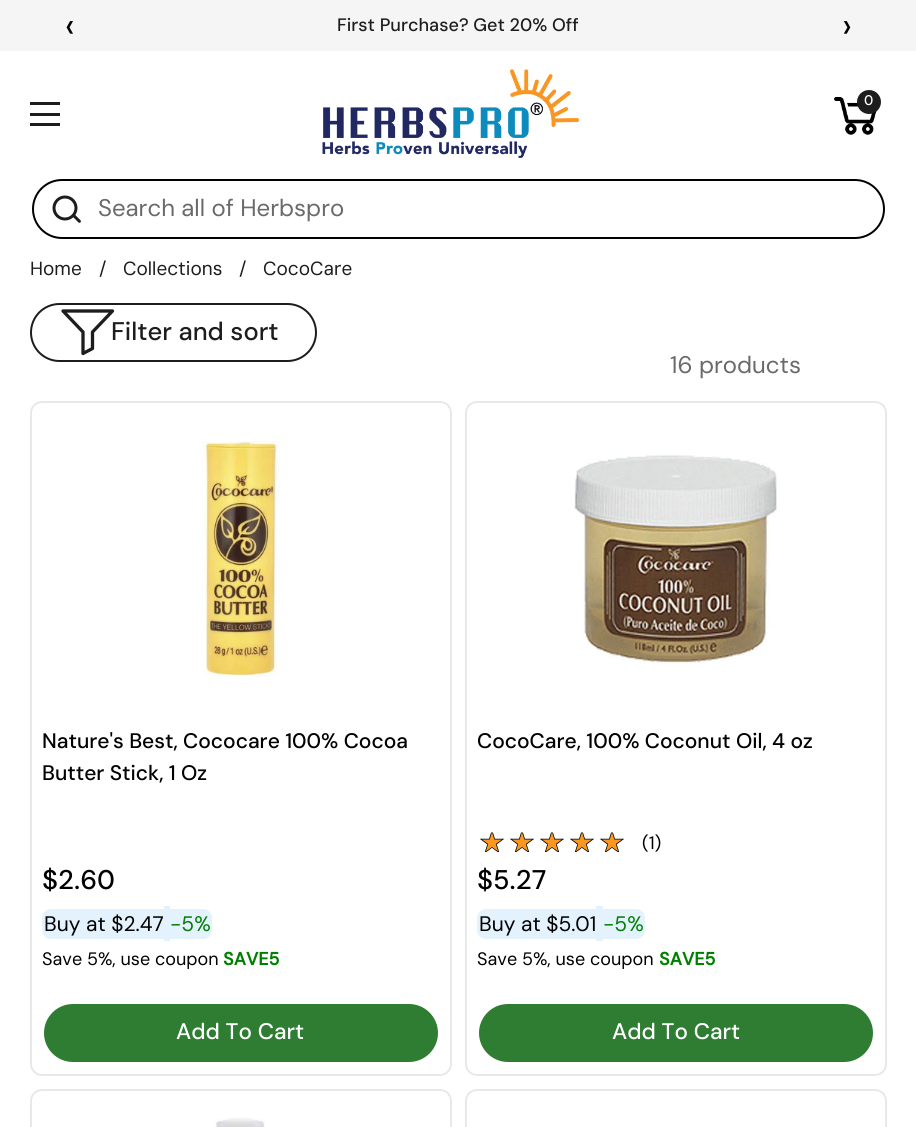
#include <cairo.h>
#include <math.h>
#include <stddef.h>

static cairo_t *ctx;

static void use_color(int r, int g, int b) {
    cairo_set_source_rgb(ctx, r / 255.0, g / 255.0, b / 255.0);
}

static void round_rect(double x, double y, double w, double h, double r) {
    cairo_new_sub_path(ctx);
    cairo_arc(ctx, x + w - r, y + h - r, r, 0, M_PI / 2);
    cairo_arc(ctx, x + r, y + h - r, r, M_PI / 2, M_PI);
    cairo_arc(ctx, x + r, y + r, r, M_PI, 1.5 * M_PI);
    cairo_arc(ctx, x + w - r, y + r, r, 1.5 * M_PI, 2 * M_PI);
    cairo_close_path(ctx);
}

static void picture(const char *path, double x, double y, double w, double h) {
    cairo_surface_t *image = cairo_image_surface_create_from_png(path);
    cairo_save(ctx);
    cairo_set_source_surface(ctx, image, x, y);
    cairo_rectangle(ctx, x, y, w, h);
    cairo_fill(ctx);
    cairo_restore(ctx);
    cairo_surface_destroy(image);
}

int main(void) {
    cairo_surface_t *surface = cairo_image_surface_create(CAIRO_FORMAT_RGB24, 916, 1127);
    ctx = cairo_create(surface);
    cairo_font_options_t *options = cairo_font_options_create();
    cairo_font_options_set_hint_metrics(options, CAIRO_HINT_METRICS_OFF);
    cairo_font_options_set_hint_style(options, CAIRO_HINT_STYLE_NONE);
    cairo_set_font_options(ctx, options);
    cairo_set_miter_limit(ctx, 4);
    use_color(255, 255, 255);
    cairo_paint(ctx);
    use_color(245, 245, 245);
    cairo_rectangle(ctx, 0, 0, 916, 51);
    cairo_fill(ctx);
    cairo_select_font_face(ctx, "DM Sans", CAIRO_FONT_SLANT_NORMAL, CAIRO_FONT_WEIGHT_NORMAL);
    cairo_set_font_size(ctx, 36);
    use_color(0, 0, 0);
    cairo_move_to(ctx, 65, 38);
    cairo_show_text(ctx, "‹");
    cairo_select_font_face(ctx, "DM Sans Medium", CAIRO_FONT_SLANT_NORMAL, CAIRO_FONT_WEIGHT_NORMAL);
    cairo_set_font_size(ctx, 18);
    use_color(29, 29, 29);
    cairo_move_to(ctx, 337, 31);
    cairo_show_text(ctx, "First Purchase? Get 20% Off");
    cairo_select_font_face(ctx, "DM Sans", CAIRO_FONT_SLANT_NORMAL, CAIRO_FONT_WEIGHT_NORMAL);
    cairo_set_font_size(ctx, 36);
    use_color(0, 0, 0);
    cairo_move_to(ctx, 842, 38);
    cairo_show_text(ctx, "›");
    picture("img1.png", 322, 69, 257, 89);
    picture("img2.png", 834, 97, 43, 38);
    use_color(29, 29, 29);
    cairo_arc(ctx, 869, 102, 12, 0, 2 * M_PI);
    cairo_fill(ctx);
    cairo_select_font_face(ctx, "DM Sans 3 Medium", CAIRO_FONT_SLANT_NORMAL, CAIRO_FONT_WEIGHT_NORMAL);
    cairo_set_font_size(ctx, 14);
    use_color(255, 255, 255);
    cairo_move_to(ctx, 864, 105);
    cairo_show_text(ctx, "0");
    use_color(29, 29, 29);
    cairo_rectangle(ctx, 30, 102, 30, 3);
    cairo_fill(ctx);
    cairo_rectangle(ctx, 30, 113, 30, 3);
    cairo_fill(ctx);
    cairo_rectangle(ctx, 30, 123, 30, 3);
    cairo_fill(ctx);
    round_rect(33, 180, 851, 58, 29);
    use_color(0, 0, 0);
    cairo_stroke(ctx);
    picture("img3.png", 52, 195, 29, 28);
    cairo_select_font_face(ctx, "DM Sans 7", CAIRO_FONT_SLANT_NORMAL, CAIRO_FONT_WEIGHT_NORMAL);
    cairo_set_font_size(ctx, 24);
    use_color(106, 106, 106);
    cairo_move_to(ctx, 98, 216);
    cairo_show_text(ctx, "Search all of Herbspro");
    cairo_select_font_face(ctx, "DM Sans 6", CAIRO_FONT_SLANT_NORMAL, CAIRO_FONT_WEIGHT_NORMAL);
    cairo_set_font_size(ctx, 19);
    use_color(29, 29, 29);
    cairo_move_to(ctx, 30, 275);
    cairo_show_text(ctx, "Home");
    cairo_move_to(ctx, 99, 275);
    cairo_show_text(ctx, "/");
    cairo_move_to(ctx, 123, 275);
    cairo_show_text(ctx, "Collections");
    cairo_move_to(ctx, 239, 275);
    cairo_show_text(ctx, "/");
    cairo_move_to(ctx, 263, 275);
    cairo_show_text(ctx, "CocoCare");
    round_rect(31, 304, 285, 57, 28.5);
    cairo_stroke(ctx);
    cairo_new_path(ctx);
    cairo_move_to(ctx, 63, 311);
    cairo_line_to(ctx, 112.5, 311);
    cairo_line_to(ctx, 92.5, 332);
    cairo_line_to(ctx, 92.5, 348.5);
    cairo_line_to(ctx, 83, 353.5);
    cairo_line_to(ctx, 83, 332);
    cairo_close_path(ctx);
    cairo_set_line_width(ctx, 3.3);
    cairo_set_line_cap(ctx, CAIRO_LINE_CAP_ROUND);
    cairo_set_line_join(ctx, CAIRO_LINE_JOIN_ROUND);
    cairo_stroke(ctx);
    cairo_select_font_face(ctx, "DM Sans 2 Medium", CAIRO_FONT_SLANT_NORMAL, CAIRO_FONT_WEIGHT_NORMAL);
    cairo_set_font_size(ctx, 25.5);
    cairo_move_to(ctx, 111, 340);
    cairo_show_text(ctx, "Filter and sort");
    cairo_select_font_face(ctx, "DM Sans 2", CAIRO_FONT_SLANT_NORMAL, CAIRO_FONT_WEIGHT_NORMAL);
    cairo_set_font_size(ctx, 24);
    use_color(106, 106, 106);
    cairo_move_to(ctx, 670, 373);
    cairo_show_text(ctx, "16 products");
    round_rect(31, 402, 420, 673, 11);
    use_color(232, 232, 232);
    cairo_set_line_width(ctx, 2);
    cairo_set_line_cap(ctx, CAIRO_LINE_CAP_BUTT);
    cairo_set_line_join(ctx, CAIRO_LINE_JOIN_MITER);
    cairo_stroke(ctx);
    picture("img4.png", 202, 441, 78, 236);
    cairo_select_font_face(ctx, "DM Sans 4 Medium", CAIRO_FONT_SLANT_NORMAL, CAIRO_FONT_WEIGHT_NORMAL);
    cairo_set_font_size(ctx, 21);
    use_color(0, 0, 0);
    cairo_move_to(ctx, 42, 748);
    cairo_show_text(ctx, "Nature's Best, Cococare 100% Cocoa");
    cairo_move_to(ctx, 42, 780);
    cairo_show_text(ctx, "Butter Stick, 1 Oz");
    cairo_select_font_face(ctx, "DM Sans 3 Medium", CAIRO_FONT_SLANT_NORMAL, CAIRO_FONT_WEIGHT_NORMAL);
    cairo_set_font_size(ctx, 27);
    cairo_move_to(ctx, 42, 889);
    cairo_show_text(ctx, "$2.60");
    use_color(227, 242, 253);
    cairo_new_path(ctx);
    cairo_move_to(ctx, 51, 909);
    cairo_line_to(ctx, 111, 909);
    cairo_line_to(ctx, 111, 939);
    cairo_line_to(ctx, 51, 939);
    cairo_curve_to(ctx, 46, 939, 42, 935, 42, 930);
    cairo_line_to(ctx, 42, 918);
    cairo_curve_to(ctx, 42, 913, 46, 909, 51, 909);
    cairo_close_path(ctx);
    cairo_fill(ctx);
    cairo_rectangle(ctx, 111, 909, 53, 30);
    cairo_fill(ctx);
    cairo_select_font_face(ctx, "DM Sans 3", CAIRO_FONT_SLANT_NORMAL, CAIRO_FONT_WEIGHT_NORMAL);
    cairo_set_font_size(ctx, 21);
    use_color(0, 0, 0);
    cairo_move_to(ctx, 44, 931);
    cairo_show_text(ctx, "Buy at $2.47");
    use_color(227, 242, 253);
    cairo_new_path(ctx);
    cairo_move_to(ctx, 170, 909);
    cairo_line_to(ctx, 203, 909);
    cairo_curve_to(ctx, 208, 909, 212, 913, 212, 918);
    cairo_line_to(ctx, 212, 930);
    cairo_curve_to(ctx, 212, 935, 208, 939, 203, 939);
    cairo_line_to(ctx, 170, 939);
    cairo_close_path(ctx);
    cairo_fill(ctx);
    use_color(0, 128, 0);
    cairo_move_to(ctx, 170, 931);
    cairo_show_text(ctx, "-5%");
    use_color(227, 242, 253);
    cairo_rectangle(ctx, 164, 906, 6, 35);
    cairo_fill(ctx);
    cairo_select_font_face(ctx, "DM Sans 4", CAIRO_FONT_SLANT_NORMAL, CAIRO_FONT_WEIGHT_NORMAL);
    cairo_set_font_size(ctx, 18);
    use_color(0, 0, 0);
    cairo_move_to(ctx, 42, 965);
    cairo_show_text(ctx, "Save 5%, use coupon");
    cairo_select_font_face(ctx, "DM Sans", CAIRO_FONT_SLANT_NORMAL, CAIRO_FONT_WEIGHT_BOLD);
    use_color(0, 128, 0);
    cairo_move_to(ctx, 223, 965);
    cairo_show_text(ctx, "SAVE5");
    use_color(46, 125, 50);
    round_rect(43, 1003, 396, 60, 30);
    cairo_fill_preserve(ctx);
    use_color(255, 255, 255);
    cairo_stroke(ctx);
    cairo_select_font_face(ctx, "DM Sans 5 Medium", CAIRO_FONT_SLANT_NORMAL, CAIRO_FONT_WEIGHT_NORMAL);
    cairo_set_font_size(ctx, 22.5);
    cairo_move_to(ctx, 176, 1039);
    cairo_show_text(ctx, "Add To Cart");
    round_rect(466, 402, 420, 673, 11);
    use_color(232, 232, 232);
    cairo_stroke(ctx);
    picture("img5.png", 573, 455, 205, 210);
    cairo_select_font_face(ctx, "DM Sans 4 Medium", CAIRO_FONT_SLANT_NORMAL, CAIRO_FONT_WEIGHT_NORMAL);
    cairo_set_font_size(ctx, 21);
    use_color(0, 0, 0);
    cairo_move_to(ctx, 477, 748);
    cairo_show_text(ctx, "CocoCare, 100% Coconut Oil, 4 oz");
    picture("img6.png", 479, 832, 146, 20);
    picture("img7.png", 482, 832, 140, 20);
    cairo_select_font_face(ctx, "DM Sans 5", CAIRO_FONT_SLANT_NORMAL, CAIRO_FONT_WEIGHT_NORMAL);
    cairo_set_font_size(ctx, 18);
    cairo_move_to(ctx, 642, 849);
    cairo_show_text(ctx, "(1)");
    cairo_select_font_face(ctx, "DM Sans 3 Medium", CAIRO_FONT_SLANT_NORMAL, CAIRO_FONT_WEIGHT_NORMAL);
    cairo_set_font_size(ctx, 27);
    cairo_move_to(ctx, 477, 889);
    cairo_show_text(ctx, "$5.27");
    use_color(227, 242, 253);
    cairo_new_path(ctx);
    cairo_move_to(ctx, 486, 909);
    cairo_line_to(ctx, 546, 909);
    cairo_line_to(ctx, 546, 939);
    cairo_line_to(ctx, 486, 939);
    cairo_curve_to(ctx, 481, 939, 477, 935, 477, 930);
    cairo_line_to(ctx, 477, 918);
    cairo_curve_to(ctx, 477, 913, 481, 909, 486, 909);
    cairo_close_path(ctx);
    cairo_fill(ctx);
    cairo_rectangle(ctx, 546, 909, 50, 30);
    cairo_fill(ctx);
    cairo_select_font_face(ctx, "DM Sans 3", CAIRO_FONT_SLANT_NORMAL, CAIRO_FONT_WEIGHT_NORMAL);
    cairo_set_font_size(ctx, 21);
    use_color(0, 0, 0);
    cairo_move_to(ctx, 479, 931);
    cairo_show_text(ctx, "Buy at $5.01");
    use_color(227, 242, 253);
    cairo_new_path(ctx);
    cairo_move_to(ctx, 603, 909);
    cairo_line_to(ctx, 636, 909);
    cairo_curve_to(ctx, 641, 909, 645, 913, 645, 918);
    cairo_line_to(ctx, 645, 930);
    cairo_curve_to(ctx, 645, 935, 641, 939, 636, 939);
    cairo_line_to(ctx, 603, 939);
    cairo_close_path(ctx);
    cairo_fill(ctx);
    use_color(0, 128, 0);
    cairo_move_to(ctx, 603, 931);
    cairo_show_text(ctx, "-5%");
    use_color(227, 242, 253);
    cairo_rectangle(ctx, 596, 906, 7, 35);
    cairo_fill(ctx);
    cairo_select_font_face(ctx, "DM Sans 4", CAIRO_FONT_SLANT_NORMAL, CAIRO_FONT_WEIGHT_NORMAL);
    cairo_set_font_size(ctx, 18);
    use_color(0, 0, 0);
    cairo_move_to(ctx, 477, 965);
    cairo_show_text(ctx, "Save 5%, use coupon");
    cairo_select_font_face(ctx, "DM Sans", CAIRO_FONT_SLANT_NORMAL, CAIRO_FONT_WEIGHT_BOLD);
    use_color(0, 128, 0);
    cairo_move_to(ctx, 659, 965);
    cairo_show_text(ctx, "SAVE5");
    use_color(46, 125, 50);
    round_rect(478, 1003, 396, 60, 30);
    cairo_fill_preserve(ctx);
    use_color(255, 255, 255);
    cairo_stroke(ctx);
    cairo_select_font_face(ctx, "DM Sans 5 Medium", CAIRO_FONT_SLANT_NORMAL, CAIRO_FONT_WEIGHT_NORMAL);
    cairo_set_font_size(ctx, 22.5);
    cairo_move_to(ctx, 612, 1039);
    cairo_show_text(ctx, "Add To Cart");
    round_rect(31, 1090, 420, 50, 11);
    use_color(232, 232, 232);
    cairo_stroke(ctx);
    picture("img8.png", 215, 1117, 50, 10);
    round_rect(466, 1090, 420, 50, 11);
    cairo_stroke(ctx);
    cairo_surface_write_to_png(surface, "result.png");
    cairo_font_options_destroy(options);
    cairo_destroy(ctx);
    cairo_surface_destroy(surface);
    return 0;
}
